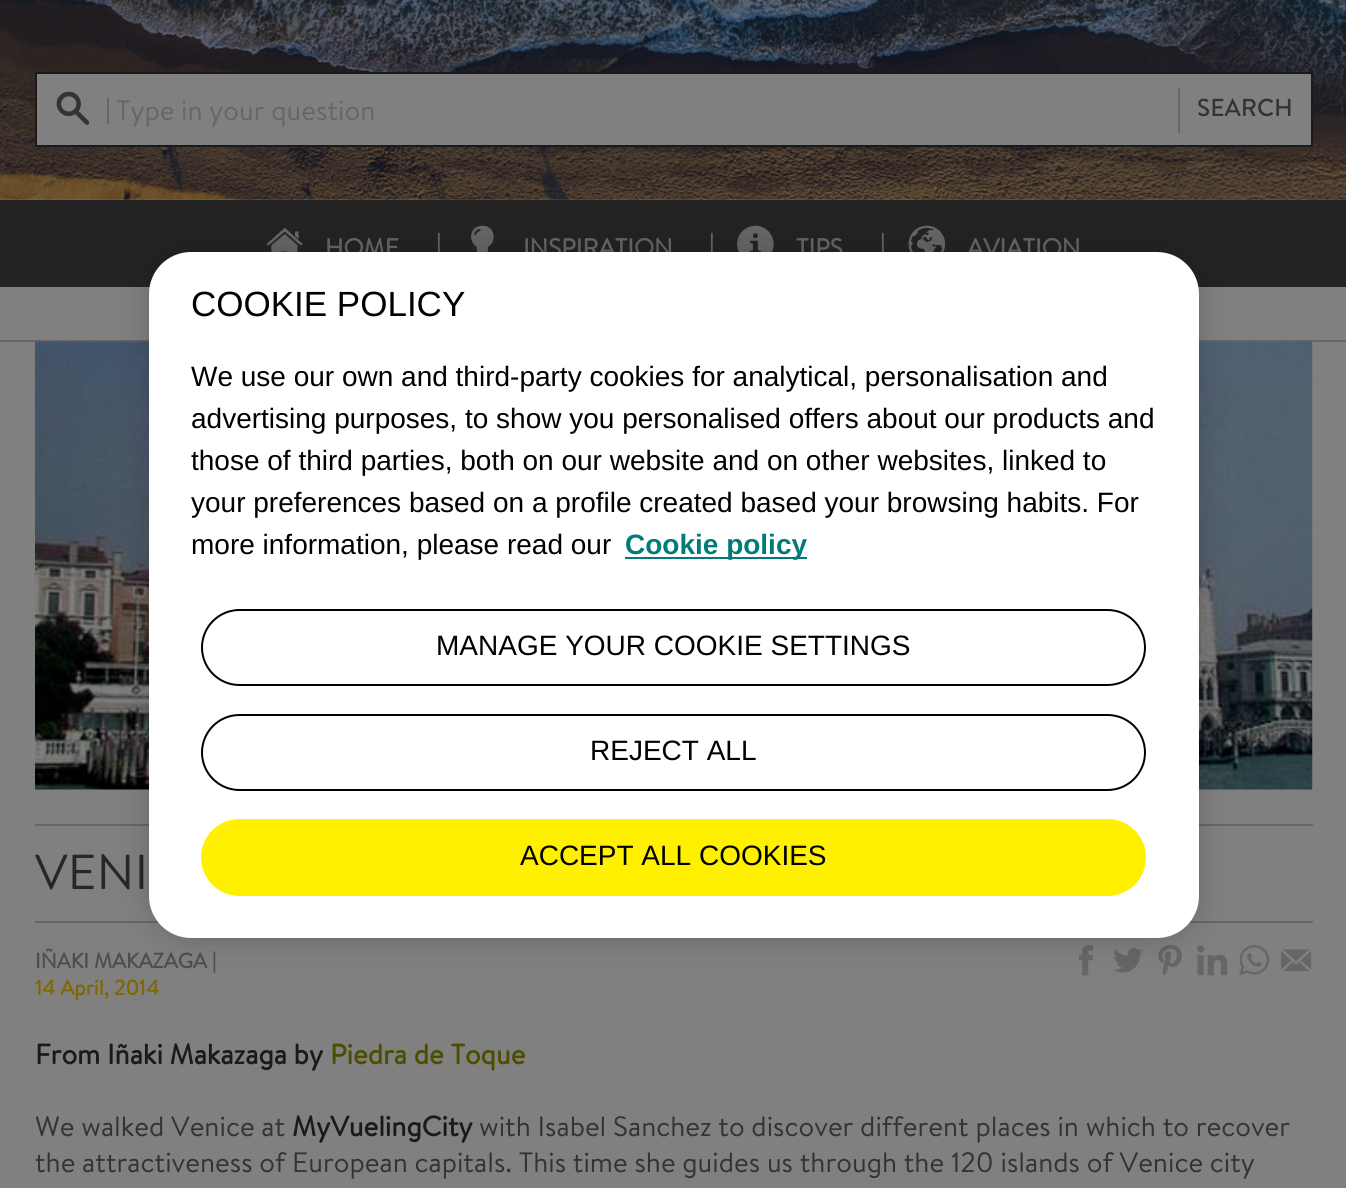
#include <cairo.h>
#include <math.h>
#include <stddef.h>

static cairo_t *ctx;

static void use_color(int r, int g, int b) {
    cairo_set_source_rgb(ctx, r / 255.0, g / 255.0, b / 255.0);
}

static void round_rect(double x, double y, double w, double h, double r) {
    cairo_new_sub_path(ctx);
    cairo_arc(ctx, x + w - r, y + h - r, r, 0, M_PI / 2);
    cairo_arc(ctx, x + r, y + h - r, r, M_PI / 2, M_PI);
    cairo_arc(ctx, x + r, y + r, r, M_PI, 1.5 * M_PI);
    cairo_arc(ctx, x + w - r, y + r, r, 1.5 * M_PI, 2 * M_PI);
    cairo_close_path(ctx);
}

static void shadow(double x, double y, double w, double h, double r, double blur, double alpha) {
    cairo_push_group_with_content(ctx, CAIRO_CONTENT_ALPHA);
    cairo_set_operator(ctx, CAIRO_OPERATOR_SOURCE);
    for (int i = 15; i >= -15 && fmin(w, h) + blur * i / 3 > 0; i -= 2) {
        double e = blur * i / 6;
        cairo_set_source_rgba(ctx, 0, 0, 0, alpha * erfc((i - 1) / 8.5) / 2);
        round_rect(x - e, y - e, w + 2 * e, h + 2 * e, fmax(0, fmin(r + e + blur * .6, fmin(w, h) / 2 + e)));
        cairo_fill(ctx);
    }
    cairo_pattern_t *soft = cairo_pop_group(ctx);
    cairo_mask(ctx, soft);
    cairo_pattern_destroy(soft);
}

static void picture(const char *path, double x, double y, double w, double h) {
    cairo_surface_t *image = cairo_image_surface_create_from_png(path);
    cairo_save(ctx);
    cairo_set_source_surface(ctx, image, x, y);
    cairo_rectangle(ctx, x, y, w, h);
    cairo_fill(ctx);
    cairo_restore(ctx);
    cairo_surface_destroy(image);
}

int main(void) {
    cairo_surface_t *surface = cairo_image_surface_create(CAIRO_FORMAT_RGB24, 1346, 1188);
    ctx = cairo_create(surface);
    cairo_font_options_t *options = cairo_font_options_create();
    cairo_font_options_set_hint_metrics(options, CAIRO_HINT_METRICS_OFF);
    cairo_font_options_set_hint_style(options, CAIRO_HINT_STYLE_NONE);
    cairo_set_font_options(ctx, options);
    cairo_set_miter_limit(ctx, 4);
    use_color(128, 128, 128);
    cairo_paint(ctx);
    picture("img1.png", 0, 0, 1346, 200);
    use_color(128, 128, 128);
    cairo_rectangle(ctx, 36, 73, 1276, 73);
    cairo_fill_preserve(ctx);
    use_color(26, 26, 26);
    cairo_stroke(ctx);
    use_color(102, 102, 102);
    cairo_rectangle(ctx, 107, 98, 2, 26);
    cairo_fill(ctx);
    picture("img2.png", 56, 91, 34, 34);
    cairo_select_font_face(ctx, "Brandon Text", CAIRO_FONT_SLANT_NORMAL, CAIRO_FONT_WEIGHT_NORMAL);
    cairo_set_font_size(ctx, 28);
    cairo_move_to(ctx, 116, 120);
    cairo_show_text(ctx, "Type in your question");
    cairo_rectangle(ctx, 1178, 88, 2, 45);
    cairo_fill(ctx);
    cairo_select_font_face(ctx, "Brandon Grotesque Medium", CAIRO_FONT_SLANT_NORMAL, CAIRO_FONT_WEIGHT_NORMAL);
    cairo_set_font_size(ctx, 24.5);
    use_color(51, 51, 51);
    cairo_move_to(ctx, 1197, 116);
    cairo_show_text(ctx, "SEARCH");
    use_color(35, 35, 35);
    cairo_rectangle(ctx, 0, 200, 1346, 87);
    cairo_fill(ctx);
    picture("img3.png", 266, 228, 37, 24);
    cairo_select_font_face(ctx, "Brandon Text", CAIRO_FONT_SLANT_NORMAL, CAIRO_FONT_WEIGHT_BOLD);
    use_color(102, 102, 102);
    cairo_move_to(ctx, 325, 256);
    cairo_show_text(ctx, "HOME");
    cairo_move_to(ctx, 436, 252);
    cairo_show_text(ctx, "|");
    picture("img4.png", 471, 225, 23, 27);
    cairo_move_to(ctx, 523, 256);
    cairo_show_text(ctx, "INSPIRATION");
    cairo_move_to(ctx, 709, 252);
    cairo_show_text(ctx, "|");
    picture("img5.png", 737, 225, 37, 27);
    cairo_move_to(ctx, 796, 256);
    cairo_show_text(ctx, "TIPS");
    cairo_move_to(ctx, 880, 252);
    cairo_show_text(ctx, "|");
    picture("img6.png", 908, 225, 38, 27);
    cairo_move_to(ctx, 967, 256);
    cairo_show_text(ctx, "AVIATION");
    cairo_rectangle(ctx, 0, 340, 1346, 2);
    cairo_fill(ctx);
    picture("img7.png", 35, 341, 1278, 449);
    cairo_rectangle(ctx, 35, 824, 1278, 2);
    cairo_fill(ctx);
    cairo_rectangle(ctx, 35, 921, 1278, 2);
    cairo_fill(ctx);
    cairo_select_font_face(ctx, "Brandon Grotesque", CAIRO_FONT_SLANT_NORMAL, CAIRO_FONT_WEIGHT_NORMAL);
    cairo_set_font_size(ctx, 49);
    use_color(39, 39, 39);
    cairo_move_to(ctx, 35, 889);
    cairo_show_text(ctx, "VENI");
    cairo_select_font_face(ctx, "Brandon Text", CAIRO_FONT_SLANT_NORMAL, CAIRO_FONT_WEIGHT_BOLD);
    cairo_set_font_size(ctx, 21);
    use_color(77, 77, 77);
    cairo_move_to(ctx, 35, 968);
    cairo_show_text(ctx, "IÑAKI MAKAZAGA |");
    use_color(128, 102, 0);
    cairo_move_to(ctx, 35, 995);
    cairo_show_text(ctx, "14 April, 2014");
    picture("img8.png", 1079, 945, 15, 31);
    picture("img9.png", 1113, 948, 30, 25);
    picture("img10.png", 1158, 944, 24, 31);
    picture("img11.png", 1197, 945, 31, 31);
    picture("img12.png", 1239, 945, 31, 31);
    picture("img13.png", 1281, 949, 31, 23);
    cairo_set_font_size(ctx, 28);
    use_color(26, 26, 26);
    cairo_move_to(ctx, 35, 1064);
    cairo_show_text(ctx, "From Iñaki Makazaga by");
    use_color(77, 77, 0);
    cairo_move_to(ctx, 330, 1064);
    cairo_show_text(ctx, "Piedra de Toque");
    cairo_select_font_face(ctx, "Brandon Text", CAIRO_FONT_SLANT_NORMAL, CAIRO_FONT_WEIGHT_NORMAL);
    use_color(51, 51, 51);
    cairo_move_to(ctx, 35, 1136);
    cairo_show_text(ctx, "We walked Venice at");
    cairo_select_font_face(ctx, "Brandon Text", CAIRO_FONT_SLANT_NORMAL, CAIRO_FONT_WEIGHT_BOLD);
    use_color(26, 26, 26);
    cairo_move_to(ctx, 292, 1136);
    cairo_show_text(ctx, "MyVuelingCity");
    cairo_select_font_face(ctx, "Brandon Text", CAIRO_FONT_SLANT_NORMAL, CAIRO_FONT_WEIGHT_NORMAL);
    use_color(51, 51, 51);
    cairo_move_to(ctx, 479, 1136);
    cairo_show_text(ctx, "with Isabel Sanchez to discover different places in which to recover");
    cairo_move_to(ctx, 35, 1172);
    cairo_show_text(ctx, "the attractiveness of European capitals. This time she guides us through the 120 islands of Venice city");
    use_color(0, 0, 0);
    shadow(149, 252, 1050, 686, 42, 16, 0.2);
    use_color(255, 255, 255);
    round_rect(149, 252, 1050, 686, 42);
    cairo_fill(ctx);
    cairo_select_font_face(ctx, "Liberation Sans", CAIRO_FONT_SLANT_NORMAL, CAIRO_FONT_WEIGHT_NORMAL);
    cairo_set_font_size(ctx, 35);
    use_color(0, 0, 0);
    cairo_move_to(ctx, 191, 316);
    cairo_show_text(ctx, "COOKIE POLICY");
    cairo_set_font_size(ctx, 28);
    cairo_move_to(ctx, 191, 386);
    cairo_show_text(ctx, "We use our own and third-party cookies for analytical, personalisation and");
    cairo_move_to(ctx, 191, 428);
    cairo_show_text(ctx, "advertising purposes, to show you personalised offers about our products and");
    cairo_move_to(ctx, 191, 470);
    cairo_show_text(ctx, "those of third parties, both on our website and on other websites, linked to");
    cairo_move_to(ctx, 191, 512);
    cairo_show_text(ctx, "your preferences based on a profile created based your browsing habits. For");
    cairo_move_to(ctx, 191, 554);
    cairo_show_text(ctx, "more information, please read our");
    use_color(0, 123, 122);
    cairo_rectangle(ctx, 625, 557, 182, 2);
    cairo_fill(ctx);
    cairo_select_font_face(ctx, "Liberation Sans", CAIRO_FONT_SLANT_NORMAL, CAIRO_FONT_WEIGHT_BOLD);
    cairo_move_to(ctx, 625, 554);
    cairo_show_text(ctx, "Cookie policy");
    round_rect(202, 610, 943, 75, 37.5);
    use_color(0, 0, 0);
    cairo_stroke(ctx);
    cairo_select_font_face(ctx, "Liberation Sans", CAIRO_FONT_SLANT_NORMAL, CAIRO_FONT_WEIGHT_NORMAL);
    cairo_move_to(ctx, 436, 655);
    cairo_show_text(ctx, "MANAGE YOUR COOKIE SETTINGS");
    round_rect(202, 715, 943, 75, 37.5);
    cairo_stroke(ctx);
    cairo_move_to(ctx, 590, 760);
    cairo_show_text(ctx, "REJECT ALL");
    use_color(255, 240, 0);
    round_rect(201, 819, 945, 77, 38.5);
    cairo_fill(ctx);
    use_color(0, 0, 0);
    cairo_move_to(ctx, 520, 865);
    cairo_show_text(ctx, "ACCEPT ALL COOKIES");
    cairo_surface_write_to_png(surface, "result.png");
    cairo_font_options_destroy(options);
    cairo_destroy(ctx);
    cairo_surface_destroy(surface);
    return 0;
}
